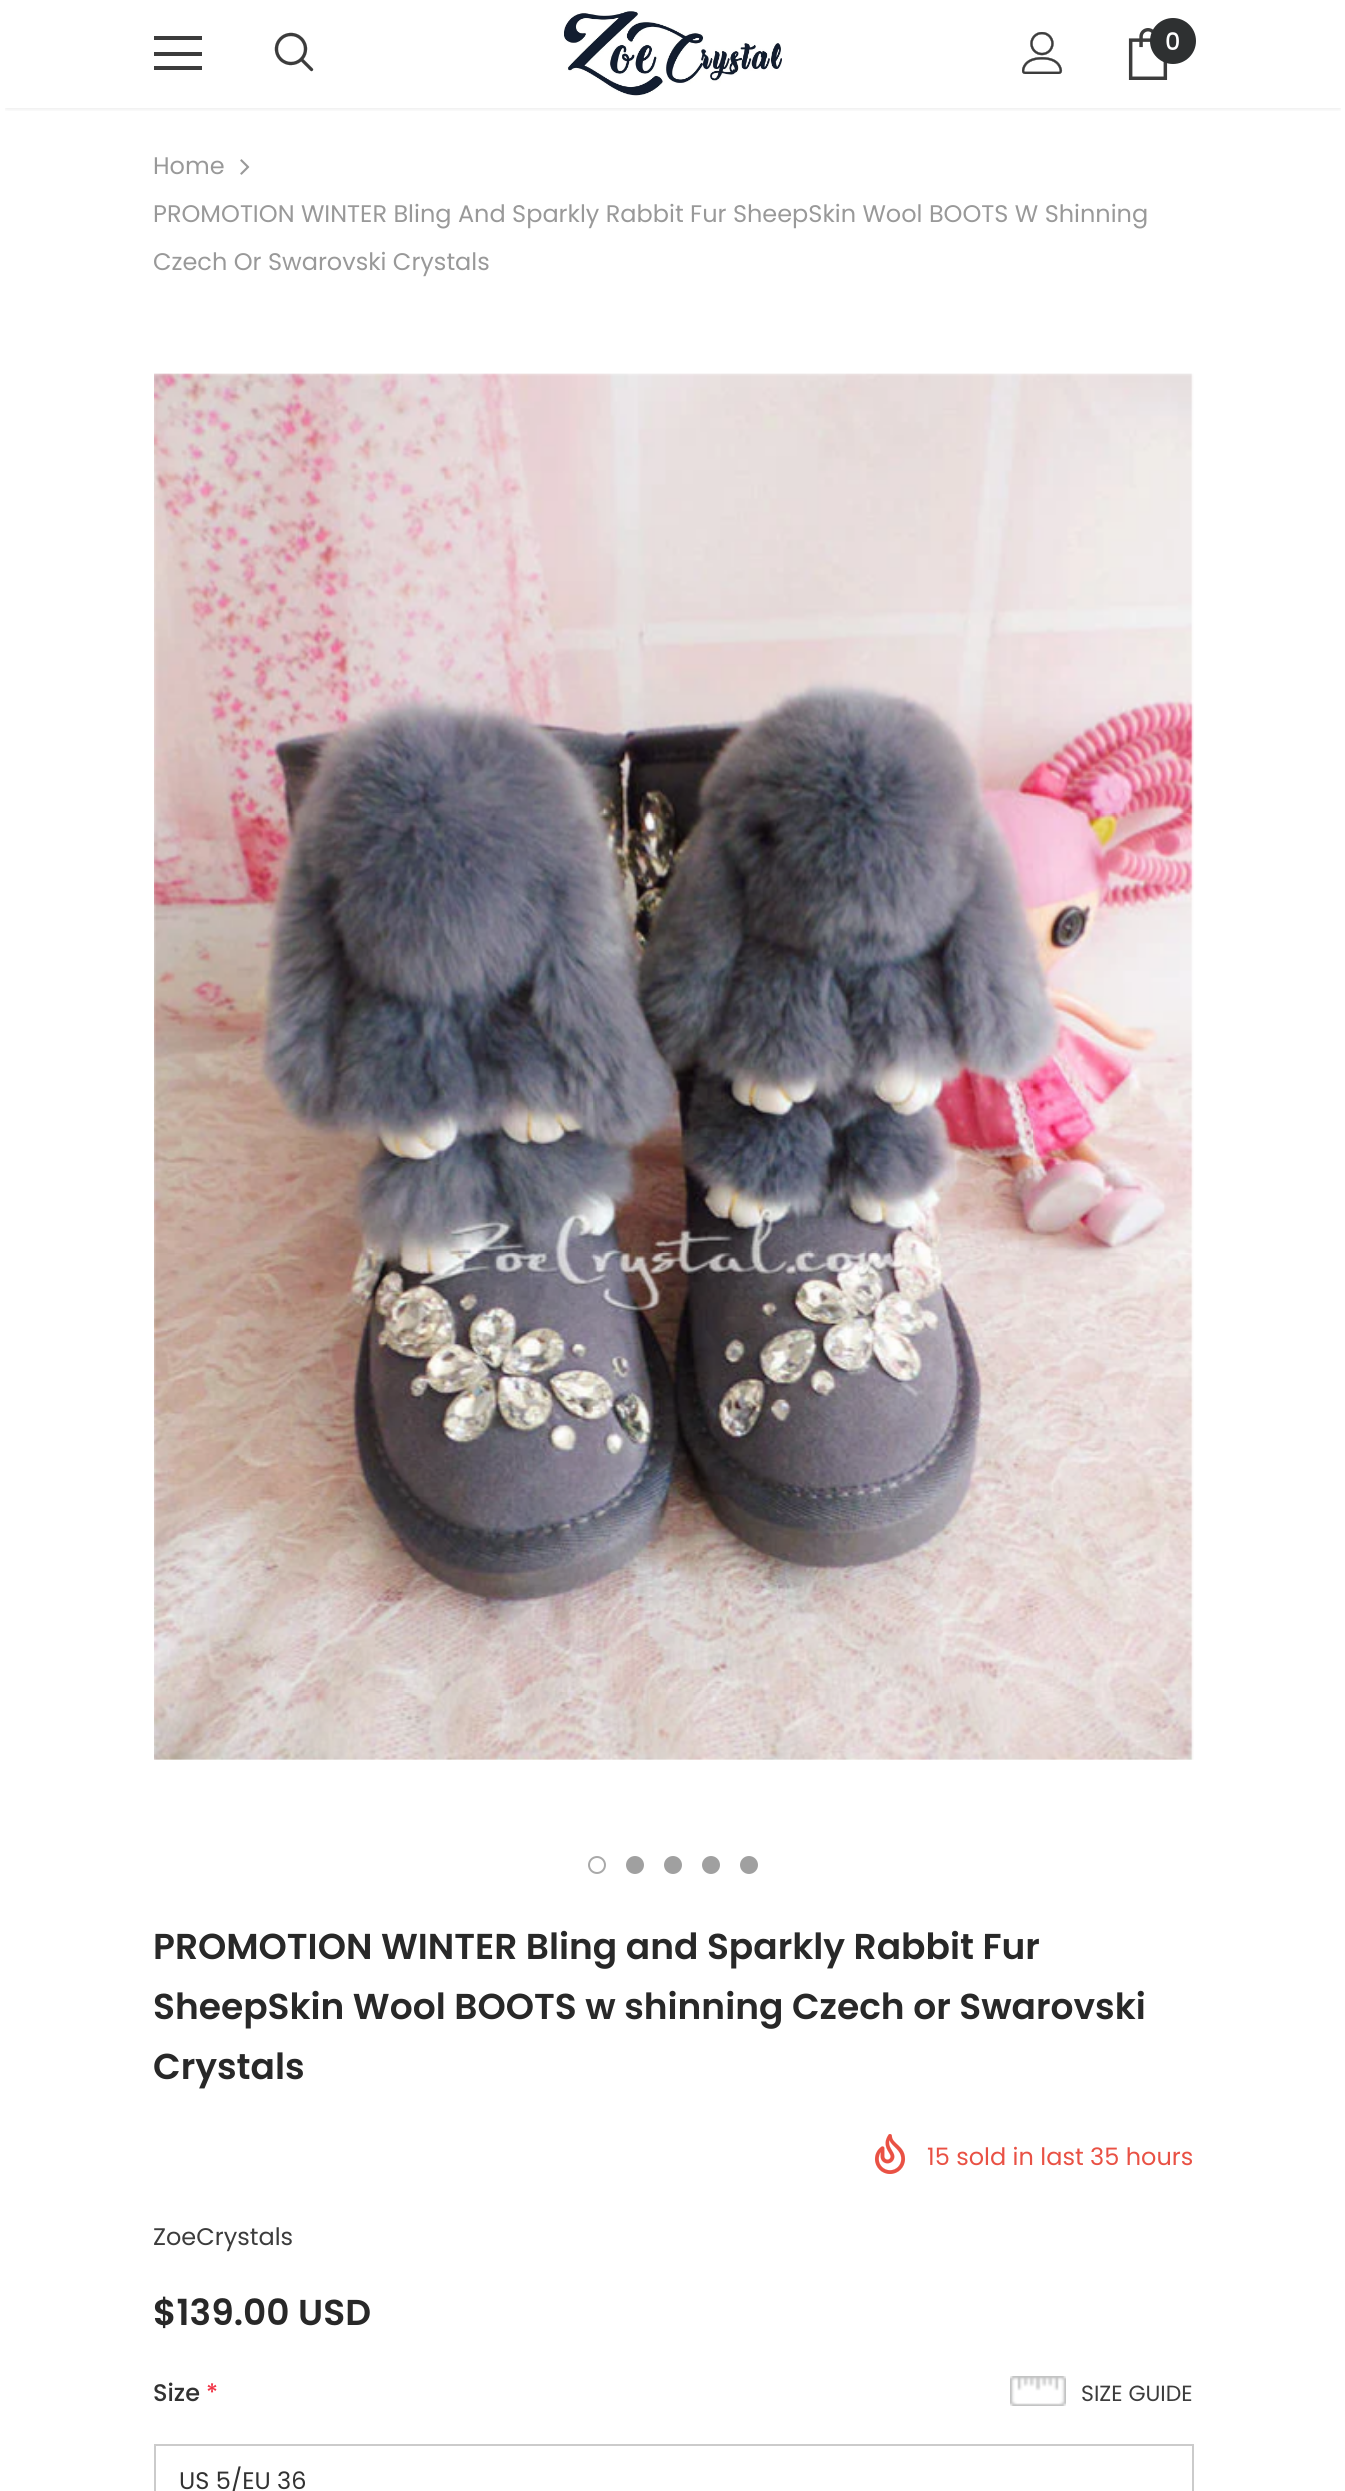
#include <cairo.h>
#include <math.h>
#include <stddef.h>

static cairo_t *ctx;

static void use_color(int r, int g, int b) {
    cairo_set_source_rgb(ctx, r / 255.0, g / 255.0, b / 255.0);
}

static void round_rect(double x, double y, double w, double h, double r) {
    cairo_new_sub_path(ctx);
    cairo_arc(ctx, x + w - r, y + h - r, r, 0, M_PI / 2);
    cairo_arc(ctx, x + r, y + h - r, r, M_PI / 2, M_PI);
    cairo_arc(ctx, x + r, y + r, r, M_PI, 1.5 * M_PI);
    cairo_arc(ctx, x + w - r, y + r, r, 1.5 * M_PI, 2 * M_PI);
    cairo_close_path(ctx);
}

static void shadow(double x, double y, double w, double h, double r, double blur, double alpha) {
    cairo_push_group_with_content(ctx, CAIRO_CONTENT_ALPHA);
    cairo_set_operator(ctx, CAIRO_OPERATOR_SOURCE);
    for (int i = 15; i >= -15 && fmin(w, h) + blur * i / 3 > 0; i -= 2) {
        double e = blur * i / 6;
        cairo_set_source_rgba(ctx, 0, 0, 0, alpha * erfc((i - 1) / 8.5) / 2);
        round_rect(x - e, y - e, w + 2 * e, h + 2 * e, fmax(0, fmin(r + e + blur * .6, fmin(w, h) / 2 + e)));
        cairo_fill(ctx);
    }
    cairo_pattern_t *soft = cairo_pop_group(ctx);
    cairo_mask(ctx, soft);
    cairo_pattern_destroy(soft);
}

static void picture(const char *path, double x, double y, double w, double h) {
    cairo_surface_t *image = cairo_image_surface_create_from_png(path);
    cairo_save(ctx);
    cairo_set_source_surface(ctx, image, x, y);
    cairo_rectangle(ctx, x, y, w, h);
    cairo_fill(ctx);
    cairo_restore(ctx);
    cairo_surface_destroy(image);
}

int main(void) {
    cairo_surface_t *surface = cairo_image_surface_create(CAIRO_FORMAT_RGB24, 1345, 2491);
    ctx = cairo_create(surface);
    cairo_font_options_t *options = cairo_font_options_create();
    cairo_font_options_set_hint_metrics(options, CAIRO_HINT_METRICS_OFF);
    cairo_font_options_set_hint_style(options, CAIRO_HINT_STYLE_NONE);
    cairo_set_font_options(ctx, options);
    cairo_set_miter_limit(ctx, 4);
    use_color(255, 255, 255);
    cairo_paint(ctx);
    cairo_save(ctx);
    cairo_rectangle(ctx, 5, 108, 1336, 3);
    cairo_clip(ctx);
    use_color(0, 0, 0);
    shadow(6, 12, 1334, 96, 0, 3, 0.12);
    cairo_restore(ctx);
    use_color(60, 60, 60);
    cairo_rectangle(ctx, 154, 36, 48, 4);
    cairo_fill(ctx);
    cairo_rectangle(ctx, 154, 52, 48, 4);
    cairo_fill(ctx);
    cairo_rectangle(ctx, 154, 66, 48, 4);
    cairo_fill(ctx);
    picture("img1.png", 274, 32, 40, 40);
    picture("img2.png", 564, 11, 218, 85);
    picture("img3.png", 1022, 32, 41, 42);
    picture("img4.png", 1128, 28, 40, 52);
    use_color(46, 48, 49);
    cairo_arc(ctx, 1173, 41, 23, 0, 2 * M_PI);
    cairo_fill(ctx);
    cairo_select_font_face(ctx, "Poppins Medium", CAIRO_FONT_SLANT_NORMAL, CAIRO_FONT_WEIGHT_NORMAL);
    cairo_set_font_size(ctx, 24);
    use_color(255, 255, 255);
    cairo_move_to(ctx, 1165, 50);
    cairo_show_text(ctx, "0");
    cairo_select_font_face(ctx, "Poppins", CAIRO_FONT_SLANT_NORMAL, CAIRO_FONT_WEIGHT_NORMAL);
    use_color(153, 153, 153);
    cairo_move_to(ctx, 153, 174);
    cairo_show_text(ctx, "Home");
    picture("img5.png", 240, 159, 10, 16);
    cairo_move_to(ctx, 153, 222);
    cairo_show_text(ctx, "PROMOTION WINTER Bling And Sparkly Rabbit Fur SheepSkin Wool BOOTS W Shinning");
    cairo_move_to(ctx, 153, 270);
    cairo_show_text(ctx, "Czech Or Swarovski Crystals");
    picture("img6.png", 154, 373, 1040, 1387);
    cairo_arc(ctx, 597, 1865, 8, 0, 2 * M_PI);
    use_color(169, 169, 169);
    cairo_stroke(ctx);
    use_color(160, 160, 160);
    cairo_arc(ctx, 635, 1865, 8, 0, 2 * M_PI);
    cairo_fill_preserve(ctx);
    cairo_stroke(ctx);
    cairo_arc(ctx, 673, 1865, 8, 0, 2 * M_PI);
    cairo_fill_preserve(ctx);
    cairo_stroke(ctx);
    cairo_arc(ctx, 711, 1865, 8, 0, 2 * M_PI);
    cairo_fill_preserve(ctx);
    cairo_stroke(ctx);
    cairo_arc(ctx, 749, 1865, 8, 0, 2 * M_PI);
    cairo_fill_preserve(ctx);
    cairo_stroke(ctx);
    cairo_select_font_face(ctx, "Poppins SemiBold", CAIRO_FONT_SLANT_NORMAL, CAIRO_FONT_WEIGHT_NORMAL);
    cairo_set_font_size(ctx, 36);
    use_color(40, 40, 40);
    cairo_move_to(ctx, 153, 1959);
    cairo_show_text(ctx, "PROMOTION WINTER Bling and Sparkly Rabbit Fur");
    cairo_move_to(ctx, 153, 2019);
    cairo_show_text(ctx, "SheepSkin Wool BOOTS w shinning Czech or Swarovski");
    cairo_move_to(ctx, 153, 2079);
    cairo_show_text(ctx, "Crystals");
    picture("img7.png", 874, 2134, 32, 40);
    cairo_select_font_face(ctx, "Poppins", CAIRO_FONT_SLANT_NORMAL, CAIRO_FONT_WEIGHT_NORMAL);
    cairo_set_font_size(ctx, 24);
    use_color(233, 81, 68);
    cairo_move_to(ctx, 927, 2165);
    cairo_show_text(ctx, "15 sold in last 35 hours");
    use_color(60, 60, 60);
    cairo_move_to(ctx, 153, 2245);
    cairo_show_text(ctx, "ZoeCrystals");
    cairo_select_font_face(ctx, "Poppins SemiBold", CAIRO_FONT_SLANT_NORMAL, CAIRO_FONT_WEIGHT_NORMAL);
    cairo_set_font_size(ctx, 36);
    use_color(40, 40, 40);
    cairo_move_to(ctx, 153, 2325);
    cairo_show_text(ctx, "$139.00 USD");
    cairo_select_font_face(ctx, "Poppins Medium", CAIRO_FONT_SLANT_NORMAL, CAIRO_FONT_WEIGHT_NORMAL);
    cairo_set_font_size(ctx, 24);
    use_color(50, 50, 50);
    cairo_move_to(ctx, 153, 2401);
    cairo_show_text(ctx, "Size");
    use_color(242, 52, 70);
    cairo_move_to(ctx, 206, 2401);
    cairo_show_text(ctx, "*");
    cairo_rectangle(ctx, 155, 2445, 1038, 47);
    use_color(203, 203, 203);
    cairo_stroke(ctx);
    cairo_select_font_face(ctx, "Poppins", CAIRO_FONT_SLANT_NORMAL, CAIRO_FONT_WEIGHT_NORMAL);
    use_color(50, 50, 50);
    cairo_move_to(ctx, 179, 2489);
    cairo_show_text(ctx, "US 5/EU 36");
    picture("img8.png", 1010, 2376, 56, 30);
    cairo_set_font_size(ctx, 22);
    use_color(60, 60, 60);
    cairo_move_to(ctx, 1081, 2401);
    cairo_show_text(ctx, "SIZE GUIDE");
    cairo_surface_write_to_png(surface, "result.png");
    cairo_font_options_destroy(options);
    cairo_destroy(ctx);
    cairo_surface_destroy(surface);
    return 0;
}
